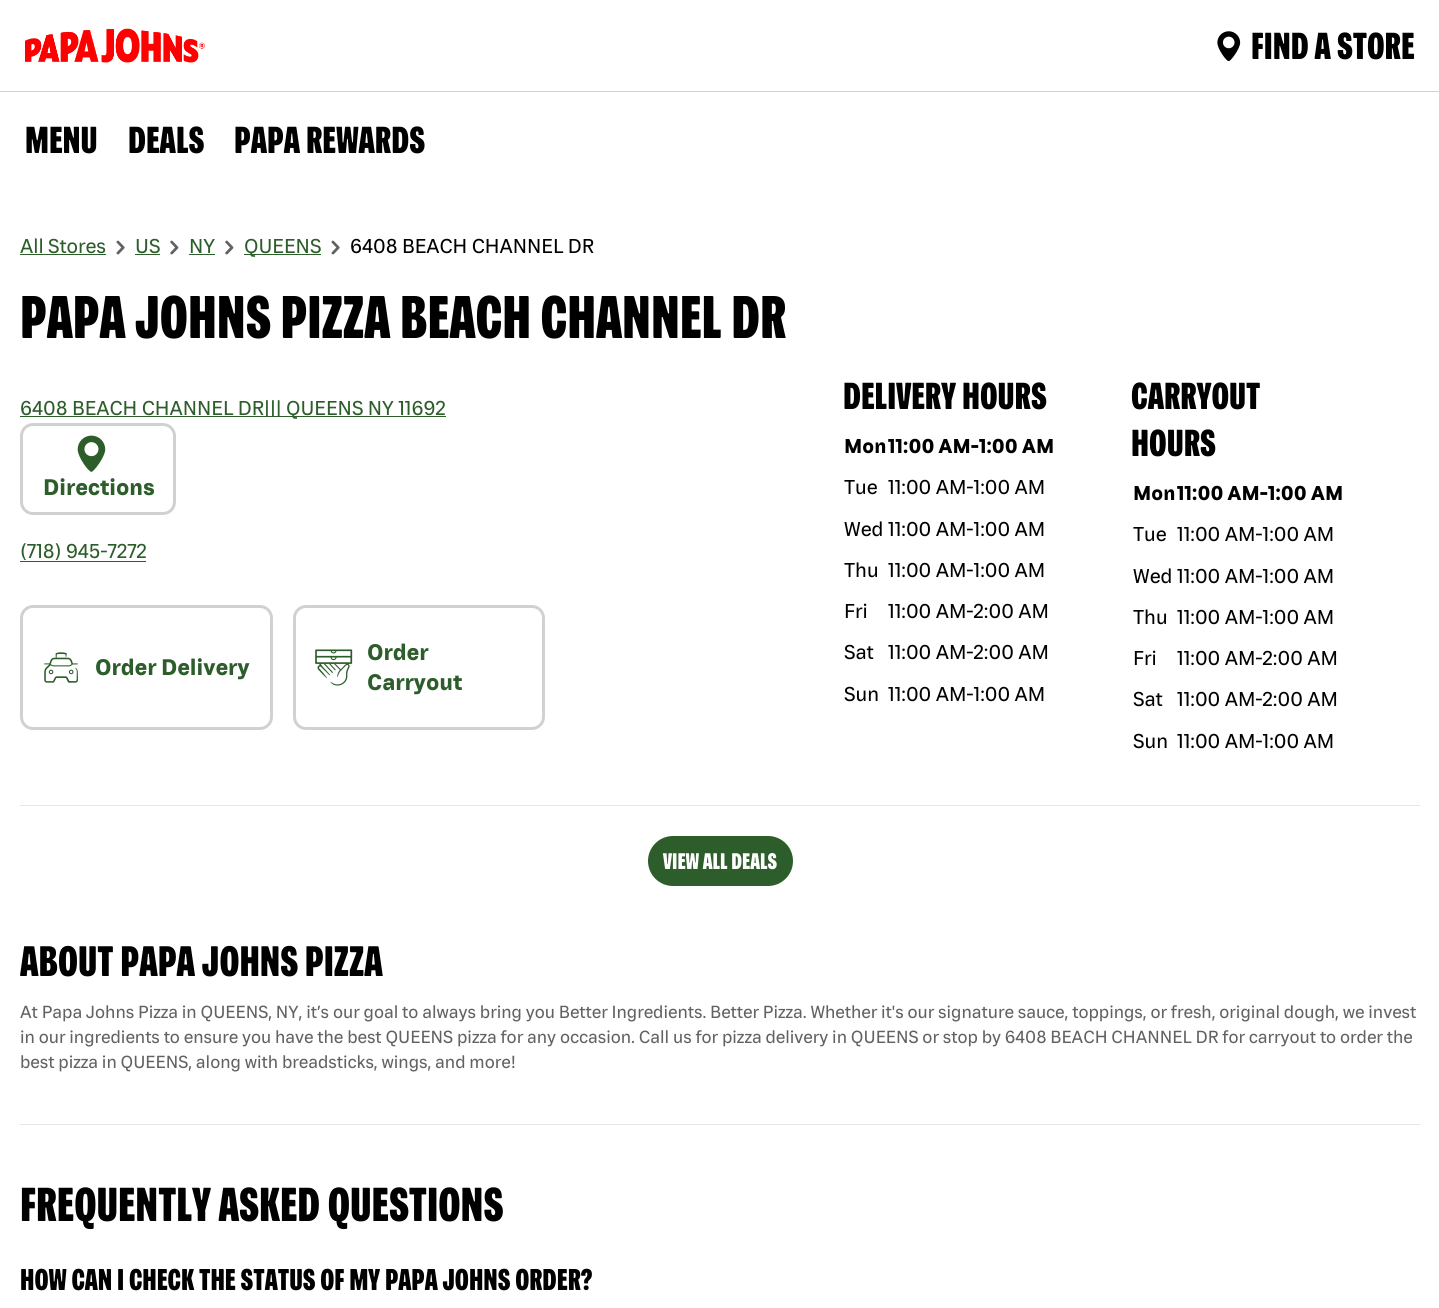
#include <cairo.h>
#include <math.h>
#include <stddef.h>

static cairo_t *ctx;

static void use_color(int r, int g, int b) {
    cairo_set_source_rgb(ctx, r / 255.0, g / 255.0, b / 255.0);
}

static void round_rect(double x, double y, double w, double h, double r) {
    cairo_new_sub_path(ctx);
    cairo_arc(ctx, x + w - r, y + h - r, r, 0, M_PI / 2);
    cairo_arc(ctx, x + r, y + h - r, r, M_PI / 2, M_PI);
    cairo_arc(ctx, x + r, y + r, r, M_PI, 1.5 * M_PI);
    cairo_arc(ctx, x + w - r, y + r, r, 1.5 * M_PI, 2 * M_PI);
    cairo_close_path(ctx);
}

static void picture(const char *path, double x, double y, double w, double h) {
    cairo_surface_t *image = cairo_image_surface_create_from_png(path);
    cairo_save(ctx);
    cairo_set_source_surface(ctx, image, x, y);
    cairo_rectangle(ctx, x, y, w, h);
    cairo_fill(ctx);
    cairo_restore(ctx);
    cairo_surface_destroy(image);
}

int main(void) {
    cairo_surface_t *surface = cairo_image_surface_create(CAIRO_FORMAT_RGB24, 1439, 1308);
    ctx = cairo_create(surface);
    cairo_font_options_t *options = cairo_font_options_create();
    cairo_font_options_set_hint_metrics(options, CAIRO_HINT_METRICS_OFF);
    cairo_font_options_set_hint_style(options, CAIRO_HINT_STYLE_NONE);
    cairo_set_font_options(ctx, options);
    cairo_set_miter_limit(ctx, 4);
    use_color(255, 255, 255);
    cairo_paint(ctx);
    use_color(209, 209, 209);
    cairo_rectangle(ctx, 0, 91, 1439, 1);
    cairo_fill(ctx);
    picture("img1.png", 25, 28, 180, 35);
    picture("img2.png", 1217, 31, 24, 30);
    cairo_select_font_face(ctx, "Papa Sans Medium", CAIRO_FONT_SLANT_NORMAL, CAIRO_FONT_WEIGHT_NORMAL);
    cairo_set_font_size(ctx, 37.5);
    use_color(0, 0, 0);
    cairo_move_to(ctx, 1251, 59);
    cairo_show_text(ctx, "FIND A STORE");
    cairo_move_to(ctx, 25, 153);
    cairo_show_text(ctx, "MENU");
    cairo_move_to(ctx, 128, 153);
    cairo_show_text(ctx, "DEALS");
    cairo_move_to(ctx, 234, 153);
    cairo_show_text(ctx, "PAPA REWARDS");
    cairo_select_font_face(ctx, "Papa Sans", CAIRO_FONT_SLANT_NORMAL, CAIRO_FONT_WEIGHT_NORMAL);
    cairo_set_font_size(ctx, 20);
    use_color(45, 93, 42);
    cairo_move_to(ctx, 20, 253);
    cairo_show_text(ctx, "All Stores");
    cairo_rectangle(ctx, 20, 254, 86, 1);
    cairo_fill(ctx);
    picture("img3.png", 116, 240, 9, 15);
    cairo_move_to(ctx, 135, 253);
    cairo_show_text(ctx, "US");
    cairo_rectangle(ctx, 135, 254, 25, 1);
    cairo_fill(ctx);
    picture("img4.png", 170, 240, 9, 15);
    cairo_move_to(ctx, 189, 253);
    cairo_show_text(ctx, "NY");
    cairo_rectangle(ctx, 189, 254, 26, 1);
    cairo_fill(ctx);
    picture("img4.png", 225, 240, 9, 15);
    cairo_rectangle(ctx, 244, 254, 77, 1);
    cairo_fill(ctx);
    cairo_move_to(ctx, 244, 253);
    cairo_show_text(ctx, "QUEENS");
    picture("img3.png", 331, 240, 9, 15);
    use_color(0, 0, 0);
    cairo_move_to(ctx, 350, 253);
    cairo_show_text(ctx, "6408 BEACH CHANNEL DR");
    use_color(230, 230, 230);
    cairo_rectangle(ctx, 20, 805, 1400, 1);
    cairo_fill(ctx);
    cairo_select_font_face(ctx, "Papa Sans Medium", CAIRO_FONT_SLANT_NORMAL, CAIRO_FONT_WEIGHT_NORMAL);
    cairo_set_font_size(ctx, 60);
    use_color(0, 0, 0);
    cairo_move_to(ctx, 20, 338);
    cairo_show_text(ctx, "PAPA JOHNS PIZZA BEACH CHANNEL DR");
    use_color(45, 93, 42);
    cairo_rectangle(ctx, 20, 416, 426, 1);
    cairo_fill(ctx);
    cairo_select_font_face(ctx, "Papa Sans", CAIRO_FONT_SLANT_NORMAL, CAIRO_FONT_WEIGHT_NORMAL);
    cairo_set_font_size(ctx, 20);
    cairo_move_to(ctx, 20, 415);
    cairo_show_text(ctx, "6408 BEACH CHANNEL DR||| QUEENS NY 11692");
    round_rect(21.5, 424.5, 153, 89, 11.5);
    use_color(209, 209, 209);
    cairo_set_line_width(ctx, 3);
    cairo_stroke(ctx);
    picture("img5.png", 77, 435, 29, 37);
    cairo_select_font_face(ctx, "Papa Sans", CAIRO_FONT_SLANT_NORMAL, CAIRO_FONT_WEIGHT_BOLD);
    cairo_set_font_size(ctx, 22.5);
    use_color(45, 93, 42);
    cairo_move_to(ctx, 43, 495);
    cairo_show_text(ctx, "Directions");
    cairo_select_font_face(ctx, "Papa Sans", CAIRO_FONT_SLANT_NORMAL, CAIRO_FONT_WEIGHT_NORMAL);
    cairo_set_font_size(ctx, 20);
    cairo_move_to(ctx, 20, 558);
    cairo_show_text(ctx, "(718) 945-7272");
    cairo_rectangle(ctx, 20, 561, 126, 1);
    cairo_fill(ctx);
    round_rect(21.5, 606.5, 250, 122, 11.5);
    use_color(209, 209, 209);
    cairo_stroke(ctx);
    picture("img6.png", 44, 652, 34, 31);
    cairo_select_font_face(ctx, "Papa Sans", CAIRO_FONT_SLANT_NORMAL, CAIRO_FONT_WEIGHT_BOLD);
    cairo_set_font_size(ctx, 22.5);
    use_color(45, 93, 42);
    cairo_move_to(ctx, 95, 675);
    cairo_show_text(ctx, "Order Delivery");
    round_rect(294.5, 606.5, 249, 122, 11.5);
    use_color(209, 209, 209);
    cairo_stroke(ctx);
    picture("img7.png", 315, 649, 38, 37);
    use_color(45, 93, 42);
    cairo_move_to(ctx, 367, 660);
    cairo_show_text(ctx, "Order");
    cairo_move_to(ctx, 367, 690);
    cairo_show_text(ctx, "Carryout");
    cairo_select_font_face(ctx, "Papa Sans Medium", CAIRO_FONT_SLANT_NORMAL, CAIRO_FONT_WEIGHT_NORMAL);
    cairo_set_font_size(ctx, 37.5);
    use_color(0, 0, 0);
    cairo_move_to(ctx, 843, 409);
    cairo_show_text(ctx, "DELIVERY HOURS");
    cairo_select_font_face(ctx, "Papa Sans", CAIRO_FONT_SLANT_NORMAL, CAIRO_FONT_WEIGHT_BOLD);
    cairo_set_font_size(ctx, 20);
    cairo_move_to(ctx, 844, 453);
    cairo_show_text(ctx, "Mon");
    cairo_move_to(ctx, 888, 453);
    cairo_show_text(ctx, "11:00 AM-1:00 AM");
    cairo_select_font_face(ctx, "Papa Sans", CAIRO_FONT_SLANT_NORMAL, CAIRO_FONT_WEIGHT_NORMAL);
    cairo_move_to(ctx, 844, 494);
    cairo_show_text(ctx, "Tue");
    cairo_move_to(ctx, 888, 494);
    cairo_show_text(ctx, "11:00 AM-1:00 AM");
    cairo_move_to(ctx, 844, 536);
    cairo_show_text(ctx, "Wed");
    cairo_move_to(ctx, 888, 536);
    cairo_show_text(ctx, "11:00 AM-1:00 AM");
    cairo_move_to(ctx, 844, 577);
    cairo_show_text(ctx, "Thu");
    cairo_move_to(ctx, 888, 577);
    cairo_show_text(ctx, "11:00 AM-1:00 AM");
    cairo_move_to(ctx, 844, 618);
    cairo_show_text(ctx, "Fri");
    cairo_move_to(ctx, 888, 618);
    cairo_show_text(ctx, "11:00 AM-2:00 AM");
    cairo_move_to(ctx, 844, 659);
    cairo_show_text(ctx, "Sat");
    cairo_move_to(ctx, 888, 659);
    cairo_show_text(ctx, "11:00 AM-2:00 AM");
    cairo_move_to(ctx, 844, 701);
    cairo_show_text(ctx, "Sun");
    cairo_move_to(ctx, 888, 701);
    cairo_show_text(ctx, "11:00 AM-1:00 AM");
    cairo_select_font_face(ctx, "Papa Sans Medium", CAIRO_FONT_SLANT_NORMAL, CAIRO_FONT_WEIGHT_NORMAL);
    cairo_set_font_size(ctx, 37.5);
    cairo_move_to(ctx, 1131, 409);
    cairo_show_text(ctx, "CARRYOUT");
    cairo_move_to(ctx, 1131, 456);
    cairo_show_text(ctx, "HOURS");
    cairo_select_font_face(ctx, "Papa Sans", CAIRO_FONT_SLANT_NORMAL, CAIRO_FONT_WEIGHT_BOLD);
    cairo_set_font_size(ctx, 20);
    cairo_move_to(ctx, 1133, 500);
    cairo_show_text(ctx, "Mon");
    cairo_move_to(ctx, 1177, 500);
    cairo_show_text(ctx, "11:00 AM-1:00 AM");
    cairo_select_font_face(ctx, "Papa Sans", CAIRO_FONT_SLANT_NORMAL, CAIRO_FONT_WEIGHT_NORMAL);
    cairo_move_to(ctx, 1133, 541);
    cairo_show_text(ctx, "Tue");
    cairo_move_to(ctx, 1177, 541);
    cairo_show_text(ctx, "11:00 AM-1:00 AM");
    cairo_move_to(ctx, 1133, 583);
    cairo_show_text(ctx, "Wed");
    cairo_move_to(ctx, 1177, 583);
    cairo_show_text(ctx, "11:00 AM-1:00 AM");
    cairo_move_to(ctx, 1133, 624);
    cairo_show_text(ctx, "Thu");
    cairo_move_to(ctx, 1177, 624);
    cairo_show_text(ctx, "11:00 AM-1:00 AM");
    cairo_move_to(ctx, 1133, 665);
    cairo_show_text(ctx, "Fri");
    cairo_move_to(ctx, 1177, 665);
    cairo_show_text(ctx, "11:00 AM-2:00 AM");
    cairo_move_to(ctx, 1133, 706);
    cairo_show_text(ctx, "Sat");
    cairo_move_to(ctx, 1177, 706);
    cairo_show_text(ctx, "11:00 AM-2:00 AM");
    cairo_move_to(ctx, 1133, 748);
    cairo_show_text(ctx, "Sun");
    cairo_move_to(ctx, 1177, 748);
    cairo_show_text(ctx, "11:00 AM-1:00 AM");
    use_color(45, 93, 42);
    round_rect(648, 836, 145, 50, 25);
    cairo_fill(ctx);
    cairo_select_font_face(ctx, "Papa Sans Medium", CAIRO_FONT_SLANT_NORMAL, CAIRO_FONT_WEIGHT_NORMAL);
    cairo_set_font_size(ctx, 22.5);
    use_color(255, 255, 255);
    cairo_move_to(ctx, 663, 869);
    cairo_show_text(ctx, "VIEW ALL DEALS");
    use_color(230, 230, 230);
    cairo_rectangle(ctx, 20, 1124, 1400, 1);
    cairo_fill(ctx);
    cairo_set_font_size(ctx, 42.5);
    use_color(0, 0, 0);
    cairo_move_to(ctx, 20, 976);
    cairo_show_text(ctx, "ABOUT PAPA JOHNS PIZZA");
    cairo_select_font_face(ctx, "Papa Sans", CAIRO_FONT_SLANT_NORMAL, CAIRO_FONT_WEIGHT_NORMAL);
    cairo_set_font_size(ctx, 17.5);
    use_color(98, 98, 98);
    cairo_move_to(ctx, 20, 1018);
    cairo_show_text(ctx, "At Papa Johns Pizza in QUEENS, NY, it’s our goal to always bring you Better Ingredients. Better Pizza. Whether it's our signature sauce, toppings, or fresh, original dough, we invest");
    cairo_move_to(ctx, 20, 1043);
    cairo_show_text(ctx, "in our ingredients to ensure you have the best QUEENS pizza for any occasion. Call us for pizza delivery in QUEENS or stop by 6408 BEACH CHANNEL DR for carryout to order the");
    cairo_move_to(ctx, 20, 1068);
    cairo_show_text(ctx, "best pizza in QUEENS, along with breadsticks, wings, and more!");
    cairo_select_font_face(ctx, "Papa Sans Medium", CAIRO_FONT_SLANT_NORMAL, CAIRO_FONT_WEIGHT_NORMAL);
    cairo_set_font_size(ctx, 47.5);
    use_color(0, 0, 0);
    cairo_move_to(ctx, 20, 1221);
    cairo_show_text(ctx, "FREQUENTLY ASKED QUESTIONS");
    cairo_set_font_size(ctx, 30);
    cairo_move_to(ctx, 20, 1290);
    cairo_show_text(ctx, "HOW CAN I CHECK THE STATUS OF MY PAPA JOHNS ORDER?");
    cairo_surface_write_to_png(surface, "result.png");
    cairo_font_options_destroy(options);
    cairo_destroy(ctx);
    cairo_surface_destroy(surface);
    return 0;
}
